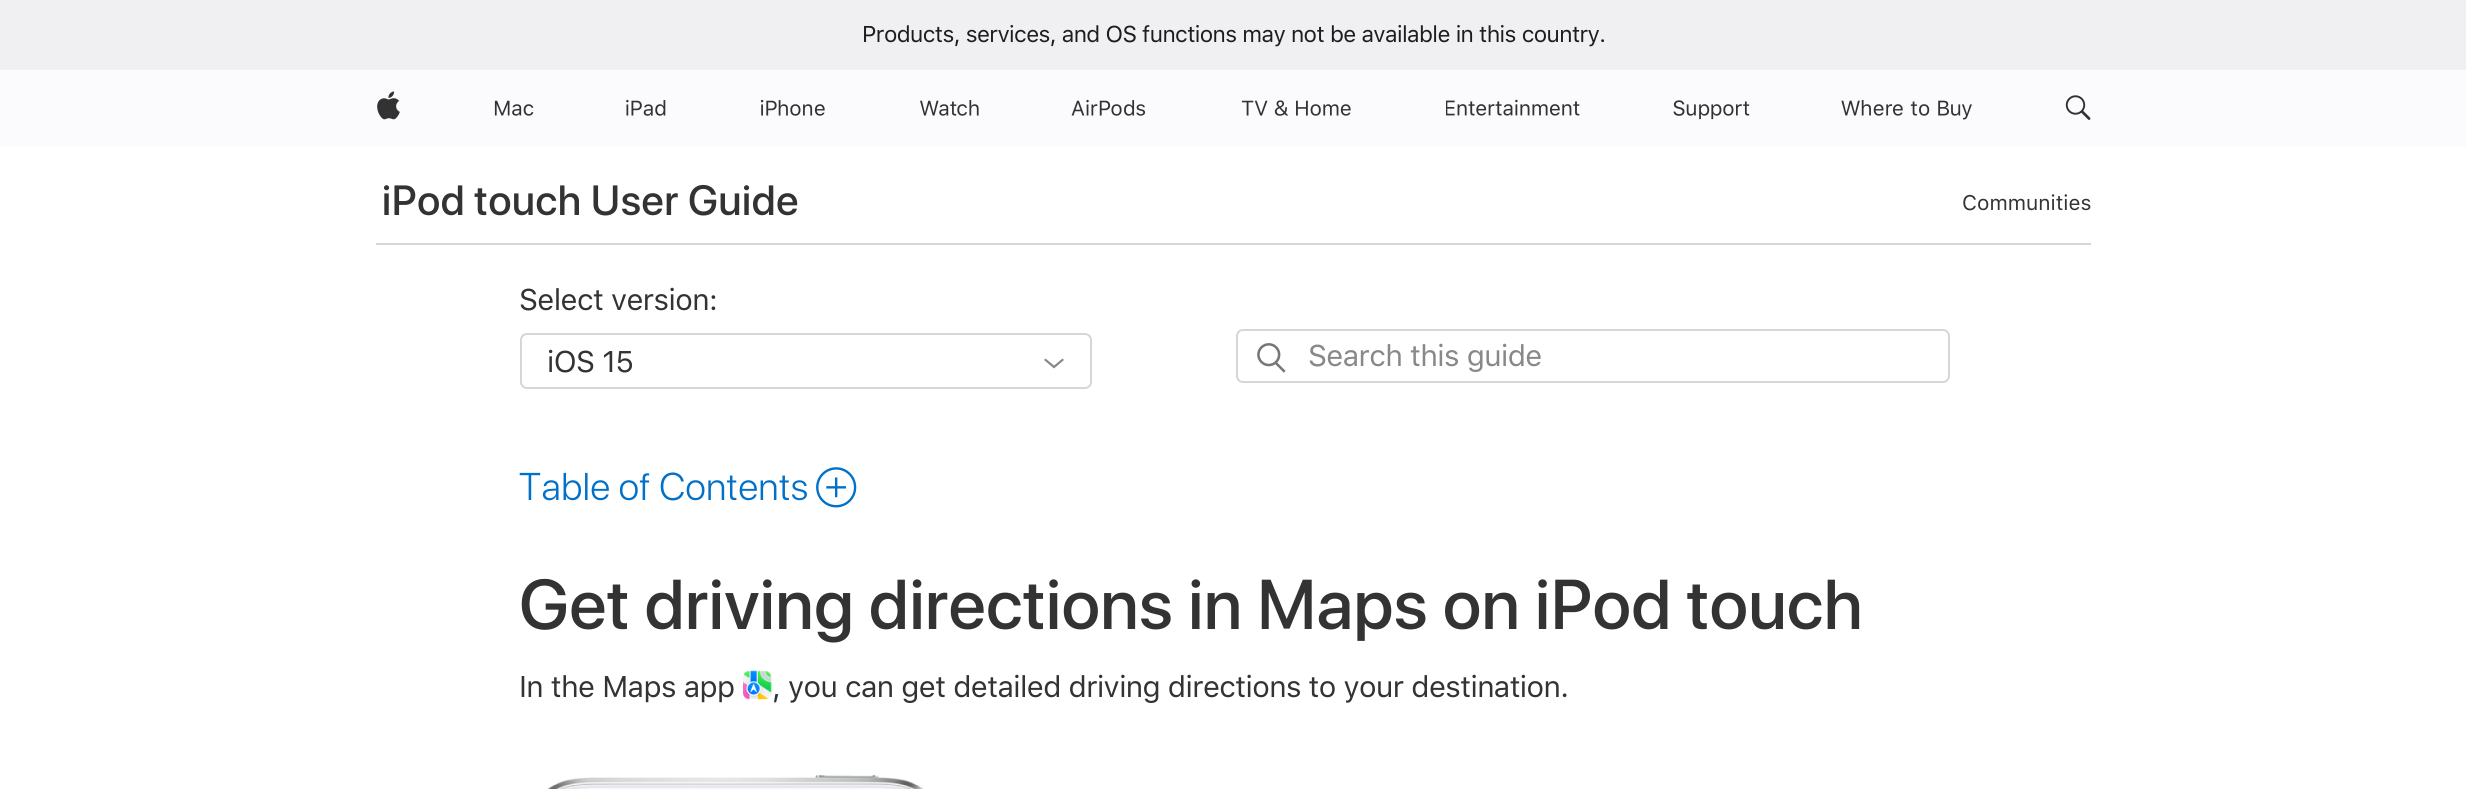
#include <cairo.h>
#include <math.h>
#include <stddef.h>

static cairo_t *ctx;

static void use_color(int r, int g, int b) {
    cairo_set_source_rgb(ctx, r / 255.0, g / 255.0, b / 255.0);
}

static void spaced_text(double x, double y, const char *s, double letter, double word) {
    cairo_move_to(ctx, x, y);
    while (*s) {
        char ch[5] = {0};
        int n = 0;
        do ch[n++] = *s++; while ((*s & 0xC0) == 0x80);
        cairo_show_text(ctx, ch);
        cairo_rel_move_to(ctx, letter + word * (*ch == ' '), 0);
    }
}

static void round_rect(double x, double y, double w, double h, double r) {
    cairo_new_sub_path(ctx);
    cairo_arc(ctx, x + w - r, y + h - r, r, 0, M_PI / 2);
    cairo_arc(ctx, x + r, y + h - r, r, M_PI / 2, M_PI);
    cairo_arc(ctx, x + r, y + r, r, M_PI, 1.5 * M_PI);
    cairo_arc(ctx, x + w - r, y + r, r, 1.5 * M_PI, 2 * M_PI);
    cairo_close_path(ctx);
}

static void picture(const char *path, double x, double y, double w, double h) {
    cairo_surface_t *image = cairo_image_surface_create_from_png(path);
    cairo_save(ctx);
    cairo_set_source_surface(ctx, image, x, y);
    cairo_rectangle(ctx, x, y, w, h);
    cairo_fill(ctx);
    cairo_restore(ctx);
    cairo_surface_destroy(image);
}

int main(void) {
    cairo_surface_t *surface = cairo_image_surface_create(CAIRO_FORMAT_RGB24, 2466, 789);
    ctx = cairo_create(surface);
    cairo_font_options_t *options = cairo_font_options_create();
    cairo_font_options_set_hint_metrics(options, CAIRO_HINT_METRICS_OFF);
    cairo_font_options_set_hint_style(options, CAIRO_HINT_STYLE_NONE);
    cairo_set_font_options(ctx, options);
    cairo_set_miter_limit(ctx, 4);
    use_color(255, 255, 255);
    cairo_paint(ctx);
    use_color(240, 240, 242);
    cairo_rectangle(ctx, 0, 0, 2466, 70);
    cairo_fill(ctx);
    cairo_select_font_face(ctx, "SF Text", CAIRO_FONT_SLANT_NORMAL, CAIRO_FONT_WEIGHT_NORMAL);
    cairo_set_font_size(ctx, 22.75);
    use_color(29, 29, 31);
    spaced_text(862, 42, "Products, services, and OS functions may not be available in this country.", -0.62, 0);
    use_color(251, 251, 253);
    cairo_rectangle(ctx, 0, 70, 2466, 77);
    cairo_fill(ctx);
    picture("img1.png", 377, 91, 23, 29);
    picture("img2.png", 494, 100, 40, 16);
    picture("img3.png", 626, 99, 40, 17);
    picture("img4.png", 760, 99, 65, 17);
    picture("img5.png", 920, 100, 59, 16);
    picture("img6.png", 1071, 99, 75, 17);
    picture("img7.png", 1241, 100, 110, 16);
    picture("img8.png", 1446, 99, 134, 17);
    picture("img9.png", 1673, 100, 77, 20);
    picture("img10.png", 1841, 100, 131, 20);
    picture("img11.png", 2065, 95, 26, 25);
    cairo_select_font_face(ctx, "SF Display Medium", CAIRO_FONT_SLANT_NORMAL, CAIRO_FONT_WEIGHT_NORMAL);
    cairo_set_font_size(ctx, 42);
    use_color(51, 51, 51);
    spaced_text(382, 215, "iPod touch User Guide", 0.6, 0);
    cairo_select_font_face(ctx, "SF Text", CAIRO_FONT_SLANT_NORMAL, CAIRO_FONT_WEIGHT_NORMAL);
    cairo_set_font_size(ctx, 21);
    cairo_move_to(ctx, 1962, 210);
    cairo_show_text(ctx, "Communities");
    use_color(214, 214, 214);
    cairo_rectangle(ctx, 376, 243, 1715, 2);
    cairo_fill(ctx);
    cairo_set_font_size(ctx, 29.75);
    use_color(51, 51, 51);
    spaced_text(519, 310, "Select version:", -0.62, 0);
    round_rect(521, 334, 570, 54, 6);
    use_color(214, 214, 214);
    cairo_stroke(ctx);
    use_color(51, 51, 51);
    spaced_text(547, 372, "iOS 15", -0.62, 0);
    use_color(136, 136, 136);
    cairo_new_path(ctx);
    cairo_move_to(ctx, 1045.5, 358.5);
    cairo_line_to(ctx, 1044, 360);
    cairo_line_to(ctx, 1054, 368.5);
    cairo_line_to(ctx, 1064, 360);
    cairo_line_to(ctx, 1062.5, 358.5);
    cairo_line_to(ctx, 1054, 365.5);
    cairo_close_path(ctx);
    cairo_fill(ctx);
    round_rect(1237, 330, 712, 52, 6);
    use_color(214, 214, 214);
    cairo_stroke(ctx);
    picture("img12.png", 1257, 343, 29, 30);
    use_color(136, 136, 136);
    spaced_text(1308, 366, "Search this guide", -0.62, 0);
    cairo_select_font_face(ctx, "SF Display Light", CAIRO_FONT_SLANT_NORMAL, CAIRO_FONT_WEIGHT_NORMAL);
    cairo_set_font_size(ctx, 38.5);
    use_color(0, 112, 201);
    spaced_text(519, 500, "Table of Contents", 0.6, 0);
    picture("img13.png", 816, 467, 41, 41);
    cairo_select_font_face(ctx, "SF Display Medium", CAIRO_FONT_SLANT_NORMAL, CAIRO_FONT_WEIGHT_NORMAL);
    cairo_set_font_size(ctx, 70);
    use_color(51, 51, 51);
    spaced_text(519, 629, "Get driving directions in Maps on iPod touch", 0.55, 0);
    cairo_select_font_face(ctx, "SF Text", CAIRO_FONT_SLANT_NORMAL, CAIRO_FONT_WEIGHT_NORMAL);
    cairo_set_font_size(ctx, 29.75);
    spaced_text(519, 697, "In the Maps app", -0.62, 0);
    picture("img14.png", 743, 670, 29, 30);
    spaced_text(772, 697, ", you can get detailed driving directions to your destination.", -0.62, 0);
    picture("img15.png", 547, 775, 377, 14);
    cairo_surface_write_to_png(surface, "result.png");
    cairo_font_options_destroy(options);
    cairo_destroy(ctx);
    cairo_surface_destroy(surface);
    return 0;
}
